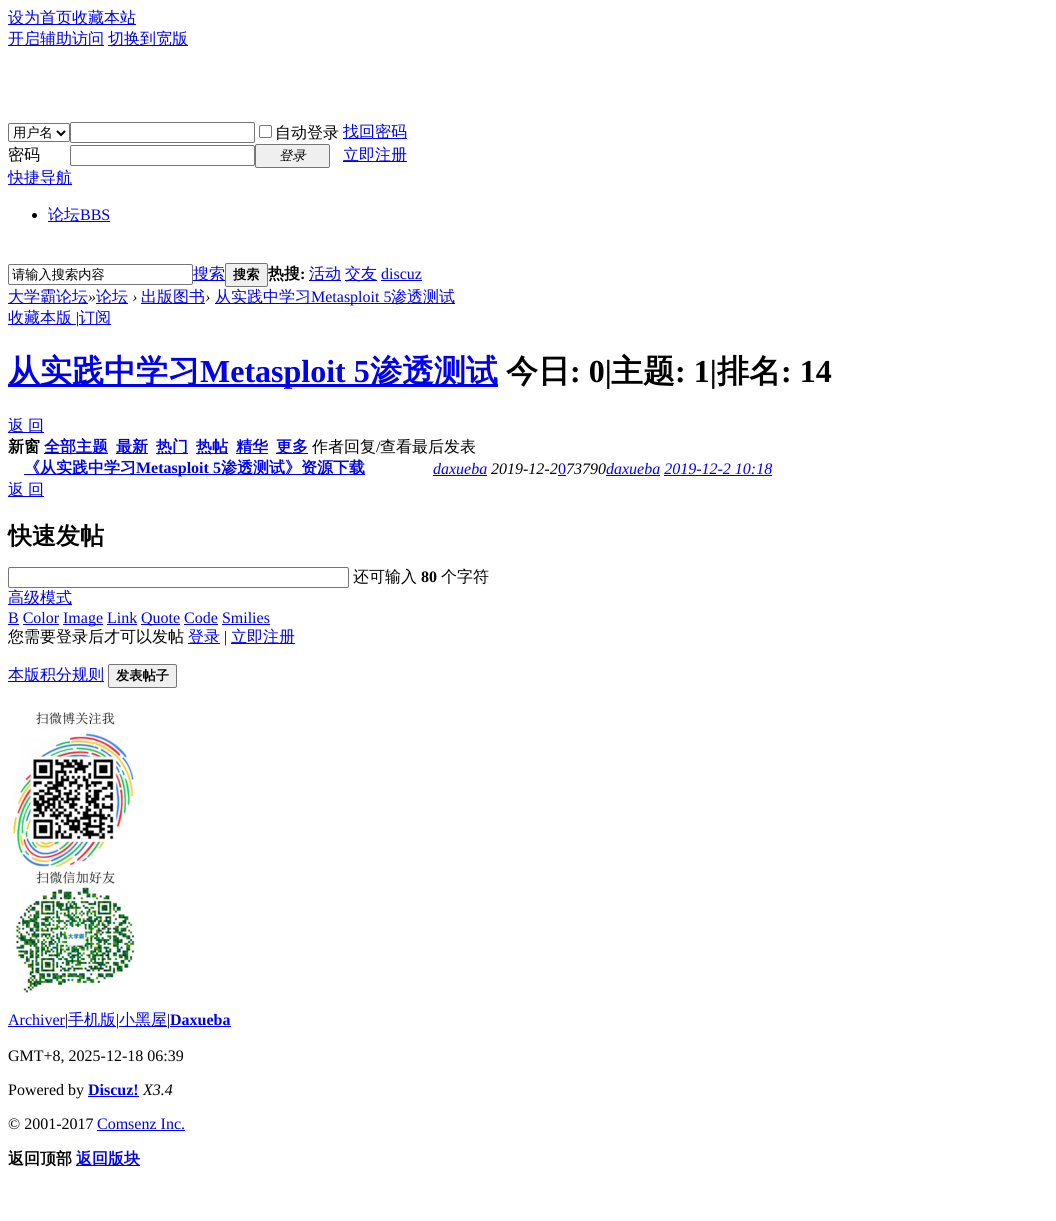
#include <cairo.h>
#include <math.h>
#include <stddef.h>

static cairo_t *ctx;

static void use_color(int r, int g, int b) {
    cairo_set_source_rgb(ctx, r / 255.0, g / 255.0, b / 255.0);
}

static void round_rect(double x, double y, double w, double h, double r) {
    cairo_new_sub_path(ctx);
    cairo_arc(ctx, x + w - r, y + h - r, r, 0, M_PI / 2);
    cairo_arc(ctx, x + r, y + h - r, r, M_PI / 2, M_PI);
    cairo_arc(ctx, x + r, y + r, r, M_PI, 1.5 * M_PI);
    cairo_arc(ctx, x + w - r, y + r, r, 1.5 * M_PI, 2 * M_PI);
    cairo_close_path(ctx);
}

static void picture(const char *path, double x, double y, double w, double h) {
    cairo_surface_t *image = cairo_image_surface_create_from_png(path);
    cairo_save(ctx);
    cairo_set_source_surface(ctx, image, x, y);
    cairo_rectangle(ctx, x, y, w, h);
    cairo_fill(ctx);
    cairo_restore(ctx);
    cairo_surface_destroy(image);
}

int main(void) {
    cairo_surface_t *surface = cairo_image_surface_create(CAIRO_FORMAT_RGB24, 1056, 1221);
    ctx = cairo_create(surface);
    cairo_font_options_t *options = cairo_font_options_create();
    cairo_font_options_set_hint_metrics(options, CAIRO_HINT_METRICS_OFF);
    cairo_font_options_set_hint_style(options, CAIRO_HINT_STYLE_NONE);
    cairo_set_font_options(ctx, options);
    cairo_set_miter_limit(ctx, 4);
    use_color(255, 255, 255);
    cairo_paint(ctx);
    use_color(0, 0, 238);
    cairo_rectangle(ctx, 8, 24, 128, 1);
    cairo_fill(ctx);
    cairo_select_font_face(ctx, "WenQuanYi Zen Hei Medium", CAIRO_FONT_SLANT_NORMAL, CAIRO_FONT_WEIGHT_NORMAL);
    cairo_set_font_size(ctx, 16);
    cairo_move_to(ctx, 8, 23);
    cairo_show_text(ctx, "设为首页收藏本站");
    cairo_rectangle(ctx, 8, 45, 96, 1);
    cairo_fill(ctx);
    cairo_move_to(ctx, 8, 44);
    cairo_show_text(ctx, "开启辅助访问");
    cairo_rectangle(ctx, 108, 45, 80, 1);
    cairo_fill(ctx);
    cairo_move_to(ctx, 108, 44);
    cairo_show_text(ctx, "切换到宽版");
    round_rect(8.5, 123.5, 61, 18, 1.5);
    use_color(118, 118, 118);
    cairo_set_line_width(ctx, 1);
    cairo_stroke(ctx);
    cairo_new_path(ctx);
    cairo_move_to(ctx, 57, 131);
    cairo_line_to(ctx, 61, 135);
    cairo_line_to(ctx, 65, 131);
    use_color(0, 0, 0);
    cairo_set_line_width(ctx, 2);
    cairo_stroke(ctx);
    cairo_set_font_size(ctx, 13.25);
    cairo_move_to(ctx, 13, 137);
    cairo_show_text(ctx, "用户名");
    round_rect(70.5, 122.5, 184, 20, 1.5);
    use_color(118, 118, 118);
    cairo_set_line_width(ctx, 1);
    cairo_stroke(ctx);
    round_rect(259.5, 125.5, 12, 12, 1.5);
    cairo_stroke(ctx);
    cairo_set_font_size(ctx, 16);
    use_color(0, 0, 0);
    cairo_move_to(ctx, 275, 138);
    cairo_show_text(ctx, "自动登录");
    use_color(0, 0, 238);
    cairo_rectangle(ctx, 343, 138, 64, 1);
    cairo_fill(ctx);
    cairo_move_to(ctx, 343, 137);
    cairo_show_text(ctx, "找回密码");
    use_color(0, 0, 0);
    cairo_move_to(ctx, 8, 160);
    cairo_show_text(ctx, "密码");
    round_rect(70.5, 145.5, 184, 20, 1.5);
    use_color(118, 118, 118);
    cairo_stroke(ctx);
    use_color(239, 239, 239);
    round_rect(255.5, 144.5, 74, 23, 1.5);
    cairo_fill_preserve(ctx);
    use_color(118, 118, 118);
    cairo_stroke(ctx);
    cairo_select_font_face(ctx, "WenQuanYi Zen Hei Medium", CAIRO_FONT_SLANT_ITALIC, CAIRO_FONT_WEIGHT_NORMAL);
    cairo_set_font_size(ctx, 13.25);
    use_color(0, 0, 0);
    cairo_move_to(ctx, 279, 160);
    cairo_show_text(ctx, "登录");
    use_color(0, 0, 238);
    cairo_rectangle(ctx, 343, 161, 64, 1);
    cairo_fill(ctx);
    cairo_select_font_face(ctx, "WenQuanYi Zen Hei Medium", CAIRO_FONT_SLANT_NORMAL, CAIRO_FONT_WEIGHT_NORMAL);
    cairo_set_font_size(ctx, 16);
    cairo_move_to(ctx, 343, 160);
    cairo_show_text(ctx, "立即注册");
    cairo_rectangle(ctx, 8, 184, 64, 1);
    cairo_fill(ctx);
    cairo_move_to(ctx, 8, 183);
    cairo_show_text(ctx, "快捷导航");
    use_color(0, 0, 0);
    cairo_new_path(ctx);
    cairo_arc(ctx, 34.5, 215.5, 2.5, 0, 2 * M_PI);
    cairo_fill(ctx);
    use_color(0, 0, 238);
    cairo_rectangle(ctx, 48, 221, 62, 1);
    cairo_fill(ctx);
    cairo_move_to(ctx, 48, 220);
    cairo_show_text(ctx, "论坛");
    cairo_select_font_face(ctx, "Liberation Serif", CAIRO_FONT_SLANT_NORMAL, CAIRO_FONT_WEIGHT_NORMAL);
    cairo_move_to(ctx, 80, 220);
    cairo_show_text(ctx, "BBS");
    round_rect(8.5, 264.5, 184, 20, 1.5);
    use_color(118, 118, 118);
    cairo_stroke(ctx);
    cairo_select_font_face(ctx, "WenQuanYi Zen Hei Medium", CAIRO_FONT_SLANT_NORMAL, CAIRO_FONT_WEIGHT_NORMAL);
    cairo_set_font_size(ctx, 13.25);
    use_color(0, 0, 0);
    cairo_move_to(ctx, 12, 279);
    cairo_show_text(ctx, "请输入搜索内容");
    use_color(0, 0, 238);
    cairo_rectangle(ctx, 193, 280, 32, 1);
    cairo_fill(ctx);
    cairo_set_font_size(ctx, 16);
    cairo_move_to(ctx, 193, 279);
    cairo_show_text(ctx, "搜索");
    use_color(239, 239, 239);
    round_rect(225.5, 263.5, 42, 23, 1.5);
    cairo_fill_preserve(ctx);
    use_color(118, 118, 118);
    cairo_stroke(ctx);
    cairo_select_font_face(ctx, "WenQuanYi Zen Hei", CAIRO_FONT_SLANT_NORMAL, CAIRO_FONT_WEIGHT_BOLD);
    cairo_set_font_size(ctx, 13.25);
    use_color(0, 0, 0);
    cairo_move_to(ctx, 233, 279);
    cairo_show_text(ctx, "搜索");
    cairo_set_font_size(ctx, 16);
    cairo_move_to(ctx, 268, 279);
    cairo_show_text(ctx, "热搜");
    cairo_select_font_face(ctx, "Liberation Serif", CAIRO_FONT_SLANT_NORMAL, CAIRO_FONT_WEIGHT_BOLD);
    cairo_move_to(ctx, 300, 279);
    cairo_show_text(ctx, ":");
    use_color(0, 0, 238);
    cairo_rectangle(ctx, 309, 280, 32, 1);
    cairo_fill(ctx);
    cairo_select_font_face(ctx, "WenQuanYi Zen Hei Medium", CAIRO_FONT_SLANT_NORMAL, CAIRO_FONT_WEIGHT_NORMAL);
    cairo_move_to(ctx, 309, 279);
    cairo_show_text(ctx, "活动");
    cairo_rectangle(ctx, 345, 280, 32, 1);
    cairo_fill(ctx);
    cairo_move_to(ctx, 345, 279);
    cairo_show_text(ctx, "交友");
    cairo_select_font_face(ctx, "Liberation Serif", CAIRO_FONT_SLANT_NORMAL, CAIRO_FONT_WEIGHT_NORMAL);
    cairo_move_to(ctx, 381, 279);
    cairo_show_text(ctx, "discuz");
    cairo_rectangle(ctx, 381, 280, 41, 1);
    cairo_fill(ctx);
    cairo_rectangle(ctx, 8, 303, 80, 1);
    cairo_fill(ctx);
    cairo_select_font_face(ctx, "WenQuanYi Zen Hei Medium", CAIRO_FONT_SLANT_NORMAL, CAIRO_FONT_WEIGHT_NORMAL);
    cairo_move_to(ctx, 8, 302);
    cairo_show_text(ctx, "大学霸论坛");
    cairo_select_font_face(ctx, "Liberation Serif", CAIRO_FONT_SLANT_ITALIC, CAIRO_FONT_WEIGHT_NORMAL);
    use_color(0, 0, 0);
    cairo_move_to(ctx, 88, 302);
    cairo_show_text(ctx, "»");
    use_color(0, 0, 238);
    cairo_rectangle(ctx, 96, 303, 32, 1);
    cairo_fill(ctx);
    cairo_select_font_face(ctx, "WenQuanYi Zen Hei Medium", CAIRO_FONT_SLANT_NORMAL, CAIRO_FONT_WEIGHT_NORMAL);
    cairo_move_to(ctx, 96, 302);
    cairo_show_text(ctx, "论坛");
    cairo_select_font_face(ctx, "Liberation Serif", CAIRO_FONT_SLANT_ITALIC, CAIRO_FONT_WEIGHT_NORMAL);
    use_color(0, 0, 0);
    cairo_move_to(ctx, 132, 302);
    cairo_show_text(ctx, "›");
    use_color(0, 0, 238);
    cairo_rectangle(ctx, 141, 303, 64, 1);
    cairo_fill(ctx);
    cairo_select_font_face(ctx, "WenQuanYi Zen Hei Medium", CAIRO_FONT_SLANT_NORMAL, CAIRO_FONT_WEIGHT_NORMAL);
    cairo_move_to(ctx, 141, 302);
    cairo_show_text(ctx, "出版图书");
    cairo_select_font_face(ctx, "Liberation Serif", CAIRO_FONT_SLANT_ITALIC, CAIRO_FONT_WEIGHT_NORMAL);
    use_color(0, 0, 0);
    cairo_move_to(ctx, 205, 302);
    cairo_show_text(ctx, "›");
    use_color(0, 0, 238);
    cairo_rectangle(ctx, 215, 303, 240, 1);
    cairo_fill(ctx);
    cairo_select_font_face(ctx, "WenQuanYi Zen Hei Medium", CAIRO_FONT_SLANT_NORMAL, CAIRO_FONT_WEIGHT_NORMAL);
    cairo_move_to(ctx, 215, 302);
    cairo_show_text(ctx, "从实践中学习");
    cairo_select_font_face(ctx, "Liberation Serif", CAIRO_FONT_SLANT_NORMAL, CAIRO_FONT_WEIGHT_NORMAL);
    cairo_move_to(ctx, 311, 302);
    cairo_show_text(ctx, "Metasploit 5");
    cairo_select_font_face(ctx, "WenQuanYi Zen Hei Medium", CAIRO_FONT_SLANT_NORMAL, CAIRO_FONT_WEIGHT_NORMAL);
    cairo_move_to(ctx, 391, 302);
    cairo_show_text(ctx, "渗透测试");
    cairo_rectangle(ctx, 8, 324, 68, 1);
    cairo_fill(ctx);
    cairo_move_to(ctx, 8, 323);
    cairo_show_text(ctx, "收藏本版");
    cairo_select_font_face(ctx, "Liberation Serif", CAIRO_FONT_SLANT_NORMAL, CAIRO_FONT_WEIGHT_NORMAL);
    use_color(0, 0, 0);
    cairo_move_to(ctx, 76, 323);
    cairo_show_text(ctx, "|");
    use_color(0, 0, 238);
    cairo_rectangle(ctx, 79, 324, 32, 1);
    cairo_fill(ctx);
    cairo_select_font_face(ctx, "WenQuanYi Zen Hei Medium", CAIRO_FONT_SLANT_NORMAL, CAIRO_FONT_WEIGHT_NORMAL);
    cairo_move_to(ctx, 79, 323);
    cairo_show_text(ctx, "订阅");
    cairo_rectangle(ctx, 8, 384, 490, 3);
    cairo_fill(ctx);
    cairo_select_font_face(ctx, "WenQuanYi Zen Hei", CAIRO_FONT_SLANT_NORMAL, CAIRO_FONT_WEIGHT_BOLD);
    cairo_set_font_size(ctx, 32);
    cairo_move_to(ctx, 8, 382);
    cairo_show_text(ctx, "从实践中学习");
    cairo_select_font_face(ctx, "Liberation Serif", CAIRO_FONT_SLANT_NORMAL, CAIRO_FONT_WEIGHT_BOLD);
    cairo_move_to(ctx, 200, 382);
    cairo_show_text(ctx, "Metasploit 5");
    cairo_select_font_face(ctx, "WenQuanYi Zen Hei", CAIRO_FONT_SLANT_NORMAL, CAIRO_FONT_WEIGHT_BOLD);
    cairo_move_to(ctx, 370, 382);
    cairo_show_text(ctx, "渗透测试");
    use_color(0, 0, 0);
    cairo_move_to(ctx, 506, 382);
    cairo_show_text(ctx, "今日");
    cairo_select_font_face(ctx, "Liberation Serif", CAIRO_FONT_SLANT_NORMAL, CAIRO_FONT_WEIGHT_BOLD);
    cairo_move_to(ctx, 570, 382);
    cairo_show_text(ctx, ": 0|");
    cairo_select_font_face(ctx, "WenQuanYi Zen Hei", CAIRO_FONT_SLANT_NORMAL, CAIRO_FONT_WEIGHT_BOLD);
    cairo_move_to(ctx, 611, 382);
    cairo_show_text(ctx, "主题");
    cairo_select_font_face(ctx, "Liberation Serif", CAIRO_FONT_SLANT_NORMAL, CAIRO_FONT_WEIGHT_BOLD);
    cairo_move_to(ctx, 675, 382);
    cairo_show_text(ctx, ": 1|");
    cairo_select_font_face(ctx, "WenQuanYi Zen Hei", CAIRO_FONT_SLANT_NORMAL, CAIRO_FONT_WEIGHT_BOLD);
    cairo_move_to(ctx, 717, 382);
    cairo_show_text(ctx, "排名");
    cairo_select_font_face(ctx, "Liberation Serif", CAIRO_FONT_SLANT_NORMAL, CAIRO_FONT_WEIGHT_BOLD);
    cairo_move_to(ctx, 781, 382);
    cairo_show_text(ctx, ": 14");
    use_color(0, 0, 238);
    cairo_rectangle(ctx, 8, 432, 36, 1);
    cairo_fill(ctx);
    cairo_select_font_face(ctx, "WenQuanYi Zen Hei Medium", CAIRO_FONT_SLANT_NORMAL, CAIRO_FONT_WEIGHT_NORMAL);
    cairo_set_font_size(ctx, 16);
    cairo_move_to(ctx, 8, 431);
    cairo_show_text(ctx, "返");
    cairo_move_to(ctx, 28, 431);
    cairo_show_text(ctx, "回");
    cairo_select_font_face(ctx, "WenQuanYi Zen Hei", CAIRO_FONT_SLANT_NORMAL, CAIRO_FONT_WEIGHT_BOLD);
    use_color(0, 0, 0);
    cairo_move_to(ctx, 8, 452);
    cairo_show_text(ctx, "新窗");
    use_color(0, 0, 238);
    cairo_rectangle(ctx, 44, 453, 64, 1);
    cairo_fill(ctx);
    cairo_move_to(ctx, 44, 452);
    cairo_show_text(ctx, "全部主题");
    cairo_rectangle(ctx, 116, 453, 32, 1);
    cairo_fill(ctx);
    cairo_move_to(ctx, 116, 452);
    cairo_show_text(ctx, "最新");
    cairo_rectangle(ctx, 156, 453, 32, 1);
    cairo_fill(ctx);
    cairo_move_to(ctx, 156, 452);
    cairo_show_text(ctx, "热门");
    cairo_rectangle(ctx, 196, 453, 32, 1);
    cairo_fill(ctx);
    cairo_move_to(ctx, 196, 452);
    cairo_show_text(ctx, "热帖");
    cairo_rectangle(ctx, 236, 453, 32, 1);
    cairo_fill(ctx);
    cairo_move_to(ctx, 236, 452);
    cairo_show_text(ctx, "精华");
    cairo_rectangle(ctx, 276, 453, 32, 1);
    cairo_fill(ctx);
    cairo_move_to(ctx, 276, 452);
    cairo_show_text(ctx, "更多");
    cairo_select_font_face(ctx, "WenQuanYi Zen Hei Medium", CAIRO_FONT_SLANT_NORMAL, CAIRO_FONT_WEIGHT_NORMAL);
    use_color(0, 0, 0);
    cairo_move_to(ctx, 312, 452);
    cairo_show_text(ctx, "作者回复");
    cairo_select_font_face(ctx, "Liberation Serif", CAIRO_FONT_SLANT_NORMAL, CAIRO_FONT_WEIGHT_NORMAL);
    cairo_move_to(ctx, 376, 452);
    cairo_show_text(ctx, "/");
    cairo_select_font_face(ctx, "WenQuanYi Zen Hei Medium", CAIRO_FONT_SLANT_NORMAL, CAIRO_FONT_WEIGHT_NORMAL);
    cairo_move_to(ctx, 380, 452);
    cairo_show_text(ctx, "查看最后发表");
    use_color(0, 0, 238);
    cairo_rectangle(ctx, 24, 474, 341, 1);
    cairo_fill(ctx);
    cairo_select_font_face(ctx, "WenQuanYi Zen Hei", CAIRO_FONT_SLANT_NORMAL, CAIRO_FONT_WEIGHT_BOLD);
    cairo_move_to(ctx, 24, 473);
    cairo_show_text(ctx, "《从实践中学习");
    cairo_select_font_face(ctx, "Liberation Serif", CAIRO_FONT_SLANT_NORMAL, CAIRO_FONT_WEIGHT_BOLD);
    cairo_move_to(ctx, 136, 473);
    cairo_show_text(ctx, "Metasploit 5");
    cairo_select_font_face(ctx, "WenQuanYi Zen Hei", CAIRO_FONT_SLANT_NORMAL, CAIRO_FONT_WEIGHT_BOLD);
    cairo_move_to(ctx, 221, 473);
    cairo_show_text(ctx, "渗透测试》资源下载");
    cairo_select_font_face(ctx, "Liberation Serif", CAIRO_FONT_SLANT_ITALIC, CAIRO_FONT_WEIGHT_NORMAL);
    cairo_move_to(ctx, 433, 474);
    cairo_show_text(ctx, "daxueba");
    cairo_rectangle(ctx, 433, 475, 54, 1);
    cairo_fill(ctx);
    use_color(0, 0, 0);
    cairo_move_to(ctx, 491, 474);
    cairo_show_text(ctx, "2019-12-2");
    cairo_select_font_face(ctx, "Liberation Serif", CAIRO_FONT_SLANT_NORMAL, CAIRO_FONT_WEIGHT_NORMAL);
    use_color(0, 0, 238);
    cairo_move_to(ctx, 558, 474);
    cairo_show_text(ctx, "0");
    cairo_rectangle(ctx, 558, 475, 8, 1);
    cairo_fill(ctx);
    cairo_select_font_face(ctx, "Liberation Serif", CAIRO_FONT_SLANT_ITALIC, CAIRO_FONT_WEIGHT_NORMAL);
    use_color(0, 0, 0);
    cairo_move_to(ctx, 566, 474);
    cairo_show_text(ctx, "73790");
    use_color(0, 0, 238);
    cairo_move_to(ctx, 606, 474);
    cairo_show_text(ctx, "daxueba 2019-12-2 10:18");
    cairo_rectangle(ctx, 606, 475, 54, 1);
    cairo_fill(ctx);
    cairo_rectangle(ctx, 664, 475, 108, 1);
    cairo_fill(ctx);
    cairo_rectangle(ctx, 8, 496, 36, 1);
    cairo_fill(ctx);
    cairo_select_font_face(ctx, "WenQuanYi Zen Hei Medium", CAIRO_FONT_SLANT_NORMAL, CAIRO_FONT_WEIGHT_NORMAL);
    cairo_move_to(ctx, 8, 495);
    cairo_show_text(ctx, "返");
    cairo_move_to(ctx, 28, 495);
    cairo_show_text(ctx, "回");
    cairo_select_font_face(ctx, "WenQuanYi Zen Hei", CAIRO_FONT_SLANT_NORMAL, CAIRO_FONT_WEIGHT_BOLD);
    cairo_set_font_size(ctx, 24);
    use_color(0, 0, 0);
    cairo_move_to(ctx, 8, 544);
    cairo_show_text(ctx, "快速发帖");
    round_rect(8.5, 567.5, 340, 20, 1.5);
    use_color(118, 118, 118);
    cairo_stroke(ctx);
    cairo_select_font_face(ctx, "WenQuanYi Zen Hei Medium", CAIRO_FONT_SLANT_NORMAL, CAIRO_FONT_WEIGHT_NORMAL);
    cairo_set_font_size(ctx, 16);
    use_color(0, 0, 0);
    cairo_move_to(ctx, 353, 582);
    cairo_show_text(ctx, "还可输入");
    cairo_select_font_face(ctx, "Liberation Serif", CAIRO_FONT_SLANT_NORMAL, CAIRO_FONT_WEIGHT_BOLD);
    cairo_move_to(ctx, 421, 582);
    cairo_show_text(ctx, "80");
    cairo_select_font_face(ctx, "WenQuanYi Zen Hei Medium", CAIRO_FONT_SLANT_NORMAL, CAIRO_FONT_WEIGHT_NORMAL);
    cairo_move_to(ctx, 441, 582);
    cairo_show_text(ctx, "个字符");
    use_color(0, 0, 238);
    cairo_rectangle(ctx, 8, 604, 64, 1);
    cairo_fill(ctx);
    cairo_move_to(ctx, 8, 603);
    cairo_show_text(ctx, "高级模式");
    cairo_select_font_face(ctx, "Liberation Serif", CAIRO_FONT_SLANT_NORMAL, CAIRO_FONT_WEIGHT_NORMAL);
    cairo_move_to(ctx, 8, 623);
    cairo_show_text(ctx, "B Color");
    cairo_rectangle(ctx, 8, 624, 11, 1);
    cairo_fill(ctx);
    cairo_rectangle(ctx, 63, 624, 40, 1);
    cairo_fill(ctx);
    cairo_move_to(ctx, 63, 623);
    cairo_show_text(ctx, "Image Link");
    cairo_rectangle(ctx, 141, 624, 39, 1);
    cairo_fill(ctx);
    cairo_move_to(ctx, 141, 623);
    cairo_show_text(ctx, "Quote Code Smilies");
    cairo_rectangle(ctx, 23, 624, 36, 1);
    cairo_fill(ctx);
    cairo_rectangle(ctx, 107, 624, 30, 1);
    cairo_fill(ctx);
    cairo_rectangle(ctx, 184, 624, 34, 1);
    cairo_fill(ctx);
    cairo_rectangle(ctx, 222, 624, 48, 1);
    cairo_fill(ctx);
    cairo_select_font_face(ctx, "WenQuanYi Zen Hei Medium", CAIRO_FONT_SLANT_NORMAL, CAIRO_FONT_WEIGHT_NORMAL);
    use_color(0, 0, 0);
    cairo_move_to(ctx, 8, 642);
    cairo_show_text(ctx, "您需要登录后才可以发帖");
    use_color(0, 0, 238);
    cairo_rectangle(ctx, 188, 643, 32, 1);
    cairo_fill(ctx);
    cairo_move_to(ctx, 188, 642);
    cairo_show_text(ctx, "登录");
    cairo_select_font_face(ctx, "Liberation Serif", CAIRO_FONT_SLANT_NORMAL, CAIRO_FONT_WEIGHT_NORMAL);
    use_color(0, 0, 0);
    cairo_move_to(ctx, 224, 642);
    cairo_show_text(ctx, "|");
    use_color(0, 0, 238);
    cairo_rectangle(ctx, 231, 643, 64, 1);
    cairo_fill(ctx);
    cairo_select_font_face(ctx, "WenQuanYi Zen Hei Medium", CAIRO_FONT_SLANT_NORMAL, CAIRO_FONT_WEIGHT_NORMAL);
    cairo_move_to(ctx, 231, 642);
    cairo_show_text(ctx, "立即注册");
    cairo_rectangle(ctx, 8, 681, 96, 1);
    cairo_fill(ctx);
    cairo_move_to(ctx, 8, 680);
    cairo_show_text(ctx, "本版积分规则");
    use_color(239, 239, 239);
    round_rect(108.5, 664.5, 68, 23, 1.5);
    cairo_fill_preserve(ctx);
    use_color(118, 118, 118);
    cairo_stroke(ctx);
    cairo_select_font_face(ctx, "WenQuanYi Zen Hei", CAIRO_FONT_SLANT_NORMAL, CAIRO_FONT_WEIGHT_BOLD);
    cairo_set_font_size(ctx, 13.25);
    use_color(0, 0, 0);
    cairo_move_to(ctx, 116, 680);
    cairo_show_text(ctx, "发表帖子");
    picture("img1.png", 13, 712, 123, 281);
    cairo_select_font_face(ctx, "Liberation Serif", CAIRO_FONT_SLANT_NORMAL, CAIRO_FONT_WEIGHT_NORMAL);
    cairo_set_font_size(ctx, 16);
    use_color(0, 0, 238);
    cairo_move_to(ctx, 8, 1025);
    cairo_show_text(ctx, "Archiver");
    cairo_rectangle(ctx, 8, 1026, 57, 1);
    cairo_fill(ctx);
    use_color(0, 0, 0);
    cairo_move_to(ctx, 65, 1025);
    cairo_show_text(ctx, "|");
    use_color(0, 0, 238);
    cairo_rectangle(ctx, 68, 1026, 48, 1);
    cairo_fill(ctx);
    cairo_select_font_face(ctx, "WenQuanYi Zen Hei Medium", CAIRO_FONT_SLANT_NORMAL, CAIRO_FONT_WEIGHT_NORMAL);
    cairo_move_to(ctx, 68, 1025);
    cairo_show_text(ctx, "手机版");
    cairo_select_font_face(ctx, "Liberation Serif", CAIRO_FONT_SLANT_NORMAL, CAIRO_FONT_WEIGHT_NORMAL);
    use_color(0, 0, 0);
    cairo_move_to(ctx, 116, 1025);
    cairo_show_text(ctx, "|");
    use_color(0, 0, 238);
    cairo_rectangle(ctx, 119, 1026, 48, 1);
    cairo_fill(ctx);
    cairo_select_font_face(ctx, "WenQuanYi Zen Hei Medium", CAIRO_FONT_SLANT_NORMAL, CAIRO_FONT_WEIGHT_NORMAL);
    cairo_move_to(ctx, 119, 1025);
    cairo_show_text(ctx, "小黑屋");
    cairo_select_font_face(ctx, "Liberation Serif", CAIRO_FONT_SLANT_NORMAL, CAIRO_FONT_WEIGHT_NORMAL);
    use_color(0, 0, 0);
    cairo_move_to(ctx, 167, 1025);
    cairo_show_text(ctx, "|");
    cairo_select_font_face(ctx, "Liberation Serif", CAIRO_FONT_SLANT_NORMAL, CAIRO_FONT_WEIGHT_BOLD);
    use_color(0, 0, 238);
    cairo_move_to(ctx, 170, 1025);
    cairo_show_text(ctx, "Daxueba");
    cairo_rectangle(ctx, 170, 1026, 61, 1);
    cairo_fill(ctx);
    cairo_select_font_face(ctx, "Liberation Serif", CAIRO_FONT_SLANT_NORMAL, CAIRO_FONT_WEIGHT_NORMAL);
    use_color(0, 0, 0);
    cairo_move_to(ctx, 8, 1061);
    cairo_show_text(ctx, "GMT+8, 2025-12-18 06:39");
    cairo_move_to(ctx, 8, 1095);
    cairo_show_text(ctx, "Powered by");
    cairo_select_font_face(ctx, "Liberation Serif", CAIRO_FONT_SLANT_NORMAL, CAIRO_FONT_WEIGHT_BOLD);
    use_color(0, 0, 238);
    cairo_move_to(ctx, 88, 1095);
    cairo_show_text(ctx, "Discuz!");
    cairo_rectangle(ctx, 88, 1096, 51, 1);
    cairo_fill(ctx);
    cairo_select_font_face(ctx, "Liberation Serif", CAIRO_FONT_SLANT_ITALIC, CAIRO_FONT_WEIGHT_NORMAL);
    use_color(0, 0, 0);
    cairo_move_to(ctx, 143, 1095);
    cairo_show_text(ctx, "X3.4");
    cairo_select_font_face(ctx, "Liberation Serif", CAIRO_FONT_SLANT_NORMAL, CAIRO_FONT_WEIGHT_NORMAL);
    cairo_move_to(ctx, 8, 1129);
    cairo_show_text(ctx, "© 2001-2017");
    use_color(0, 0, 238);
    cairo_move_to(ctx, 97, 1129);
    cairo_show_text(ctx, "Comsenz Inc.");
    cairo_rectangle(ctx, 97, 1130, 88, 1);
    cairo_fill(ctx);
    cairo_select_font_face(ctx, "WenQuanYi Zen Hei", CAIRO_FONT_SLANT_NORMAL, CAIRO_FONT_WEIGHT_BOLD);
    use_color(0, 0, 0);
    cairo_move_to(ctx, 8, 1164);
    cairo_show_text(ctx, "返回顶部");
    use_color(0, 0, 238);
    cairo_rectangle(ctx, 76, 1165, 64, 1);
    cairo_fill(ctx);
    cairo_move_to(ctx, 76, 1164);
    cairo_show_text(ctx, "返回版块");
    cairo_surface_write_to_png(surface, "result.png");
    cairo_font_options_destroy(options);
    cairo_destroy(ctx);
    cairo_surface_destroy(surface);
    return 0;
}
